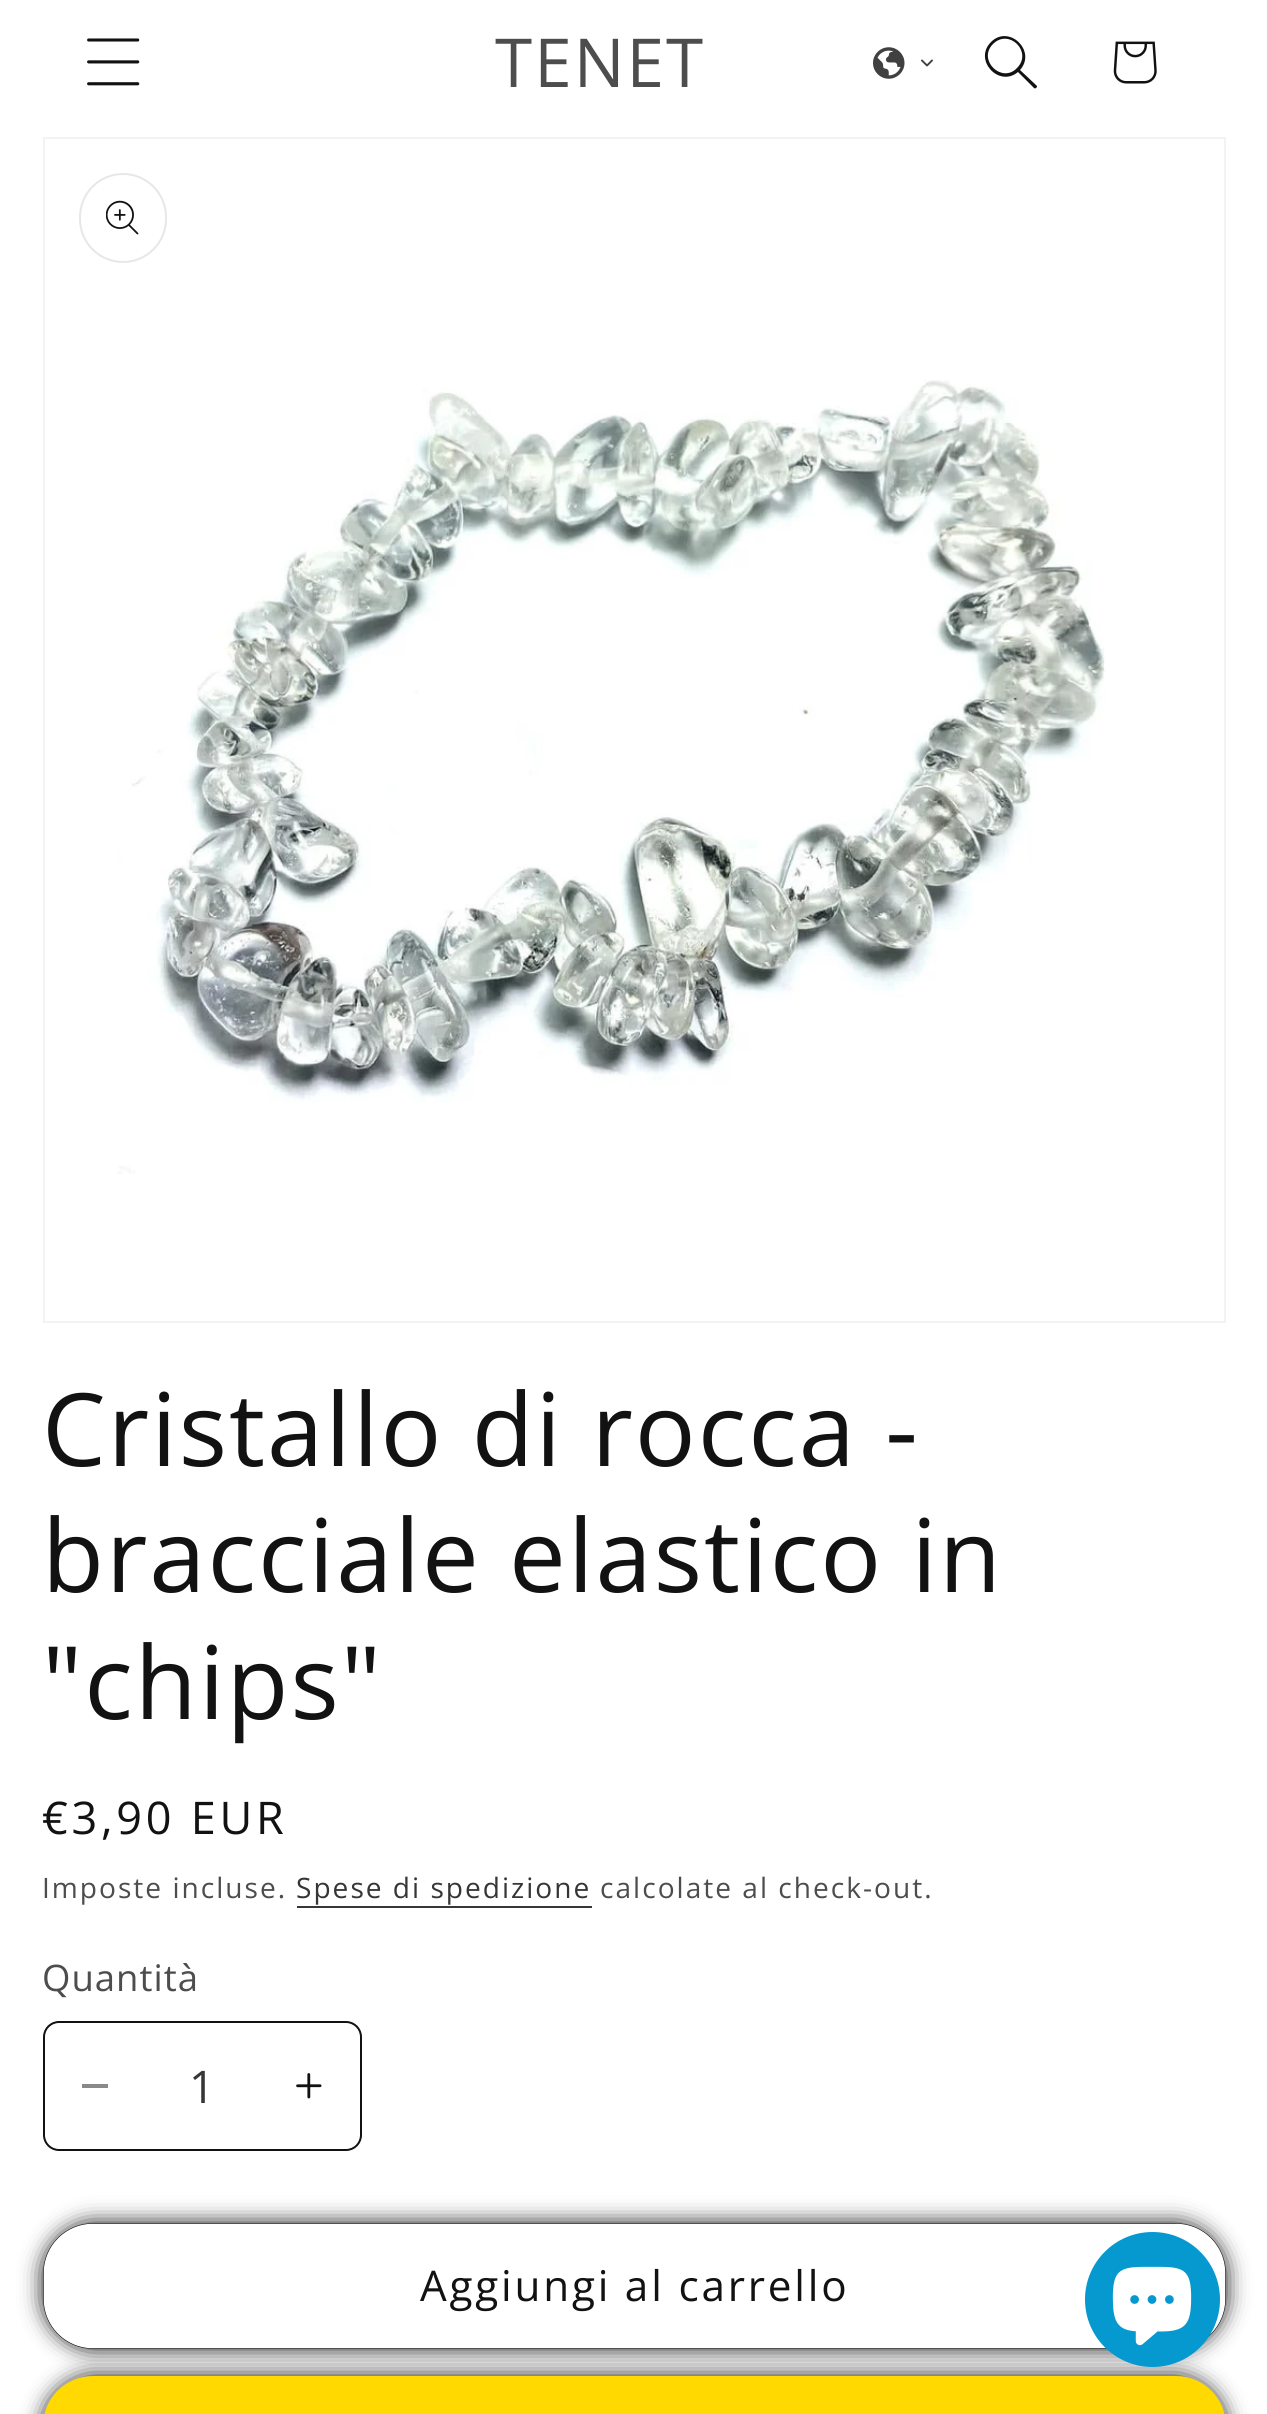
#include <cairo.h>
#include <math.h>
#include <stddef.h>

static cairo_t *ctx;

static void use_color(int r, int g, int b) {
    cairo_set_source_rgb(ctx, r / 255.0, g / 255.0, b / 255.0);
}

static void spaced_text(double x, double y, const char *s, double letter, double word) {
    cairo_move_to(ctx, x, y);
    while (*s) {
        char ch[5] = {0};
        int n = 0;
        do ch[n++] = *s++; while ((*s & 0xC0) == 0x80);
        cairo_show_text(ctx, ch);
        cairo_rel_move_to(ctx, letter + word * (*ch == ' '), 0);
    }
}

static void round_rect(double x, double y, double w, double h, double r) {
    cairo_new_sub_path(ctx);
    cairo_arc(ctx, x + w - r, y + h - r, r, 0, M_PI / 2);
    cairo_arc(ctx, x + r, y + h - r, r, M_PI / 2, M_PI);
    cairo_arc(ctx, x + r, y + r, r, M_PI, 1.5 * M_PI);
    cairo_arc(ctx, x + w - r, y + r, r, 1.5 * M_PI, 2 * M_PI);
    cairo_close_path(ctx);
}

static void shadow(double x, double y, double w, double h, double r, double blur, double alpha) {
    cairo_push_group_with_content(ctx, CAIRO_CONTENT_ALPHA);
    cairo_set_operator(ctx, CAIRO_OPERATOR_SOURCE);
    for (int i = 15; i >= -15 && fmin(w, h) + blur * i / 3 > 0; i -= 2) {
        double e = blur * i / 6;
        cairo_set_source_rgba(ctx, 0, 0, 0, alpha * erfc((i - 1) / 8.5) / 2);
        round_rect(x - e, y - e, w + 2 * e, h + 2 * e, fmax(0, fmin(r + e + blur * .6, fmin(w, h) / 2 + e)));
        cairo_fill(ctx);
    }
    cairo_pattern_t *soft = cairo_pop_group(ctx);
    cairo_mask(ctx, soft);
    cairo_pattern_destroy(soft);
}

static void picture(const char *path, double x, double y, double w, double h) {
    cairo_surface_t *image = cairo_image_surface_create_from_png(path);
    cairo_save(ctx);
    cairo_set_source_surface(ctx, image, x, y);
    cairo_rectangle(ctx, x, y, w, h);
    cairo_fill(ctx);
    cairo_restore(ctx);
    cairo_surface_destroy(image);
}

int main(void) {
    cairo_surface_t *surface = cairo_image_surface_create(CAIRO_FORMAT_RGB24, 1267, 2414);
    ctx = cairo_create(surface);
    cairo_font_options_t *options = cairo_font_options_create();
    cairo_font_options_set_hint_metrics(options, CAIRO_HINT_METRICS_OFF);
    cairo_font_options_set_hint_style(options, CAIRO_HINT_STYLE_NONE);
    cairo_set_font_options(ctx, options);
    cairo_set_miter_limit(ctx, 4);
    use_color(255, 255, 255);
    cairo_paint(ctx);
    picture("img1.png", 87, 38, 53, 48);
    cairo_select_font_face(ctx, "Open Sans", CAIRO_FONT_SLANT_NORMAL, CAIRO_FONT_WEIGHT_NORMAL);
    cairo_set_font_size(ctx, 67.5);
    use_color(77, 77, 77);
    spaced_text(495, 87, "TENET", 2, 0);
    picture("img2.png", 873, 47, 32, 32);
    picture("img3.png", 921, 59, 12, 8);
    use_color(18, 18, 18);
    cairo_set_fill_rule(ctx, CAIRO_FILL_RULE_EVEN_ODD);
    cairo_new_path(ctx);
    cairo_move_to(ctx, 1017, 68);
    cairo_curve_to(ctx, 1002, 84, 977, 60, 993, 44);
    cairo_curve_to(ctx, 1009, 28, 1033, 52, 1017, 68);
    cairo_move_to(ctx, 1018, 72);
    cairo_curve_to(ctx, 999, 88, 973, 60, 991, 42);
    cairo_curve_to(ctx, 1009, 24, 1037, 51, 1020, 70);
    cairo_line_to(ctx, 1037, 86);
    cairo_curve_to(ctx, 1037, 88, 1035, 89, 1034, 88);
    cairo_close_path(ctx);
    cairo_fill(ctx);
    picture("img4.png", 1113, 41, 44, 43);
    cairo_rectangle(ctx, 44, 138, 1181, 1184);
    use_color(243, 243, 243);
    cairo_stroke(ctx);
    round_rect(80, 174, 86, 88, 43);
    use_color(231, 231, 231);
    cairo_stroke(ctx);
    picture("img5.png", 106, 200, 33, 35);
    picture("img6.png", 117, 380, 989, 794);
    cairo_set_font_size(ctx, 101.25);
    use_color(18, 18, 18);
    spaced_text(42, 1466, "Cristallo di rocca -", 2, 0);
    spaced_text(42, 1592, "bracciale elastico in", 2, 0);
    spaced_text(42, 1719, "\"chips\"", 2, 0);
    cairo_set_font_size(ctx, 45);
    spaced_text(42, 1834, "€3,90 EUR", 3.75, 0);
    cairo_set_font_size(ctx, 28.1);
    use_color(77, 77, 77);
    spaced_text(42, 1898, "Imposte incluse.", 2, 0);
    use_color(54, 54, 54);
    spaced_text(296, 1898, "Spese di spedizione", 2, 0);
    cairo_rectangle(ctx, 297, 1906, 295, 2);
    cairo_fill(ctx);
    use_color(77, 77, 77);
    spaced_text(600, 1898, "calcolate al check-out.", 2, 0);
    cairo_set_font_size(ctx, 36.5);
    spaced_text(42, 1991, "Quantità", 1, 0);
    use_color(137, 137, 137);
    cairo_rectangle(ctx, 82, 2084, 26, 4);
    cairo_fill(ctx);
    picture("img7.png", 296, 2073, 26, 26);
    round_rect(44, 2022, 317, 128, 15);
    use_color(18, 18, 18);
    cairo_stroke(ctx);
    cairo_set_font_size(ctx, 45);
    use_color(54, 54, 54);
    cairo_move_to(ctx, 189, 2103);
    cairo_show_text(ctx, "1");
    use_color(18, 18, 18);
    shadow(43, 2223, 1183, 126, 50, 11, 1);
    shadow(43, 2376, 1183, 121, 50, 11, 1);
    use_color(255, 255, 255);
    round_rect(43, 2223, 1183, 126, 50);
    cairo_fill(ctx);
    round_rect(43.35, 2223.35, 1182.3, 125.3, 49.65);
    use_color(18, 18, 18);
    cairo_set_line_width(ctx, 0.7);
    cairo_stroke(ctx);
    cairo_set_font_size(ctx, 42.25);
    spaced_text(420, 2301, "Aggiungi al carrello", 2.8, 0);
    use_color(255, 217, 0);
    round_rect(43, 2376, 1183, 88, 50);
    cairo_fill(ctx);
    use_color(5, 153, 207);
    cairo_arc(ctx, 1152.5, 2299.5, 67.5, 0, 2 * M_PI);
    cairo_fill(ctx);
    picture("img8.png", 1112, 2266, 80, 80);
    cairo_surface_write_to_png(surface, "result.png");
    cairo_font_options_destroy(options);
    cairo_destroy(ctx);
    cairo_surface_destroy(surface);
    return 0;
}
